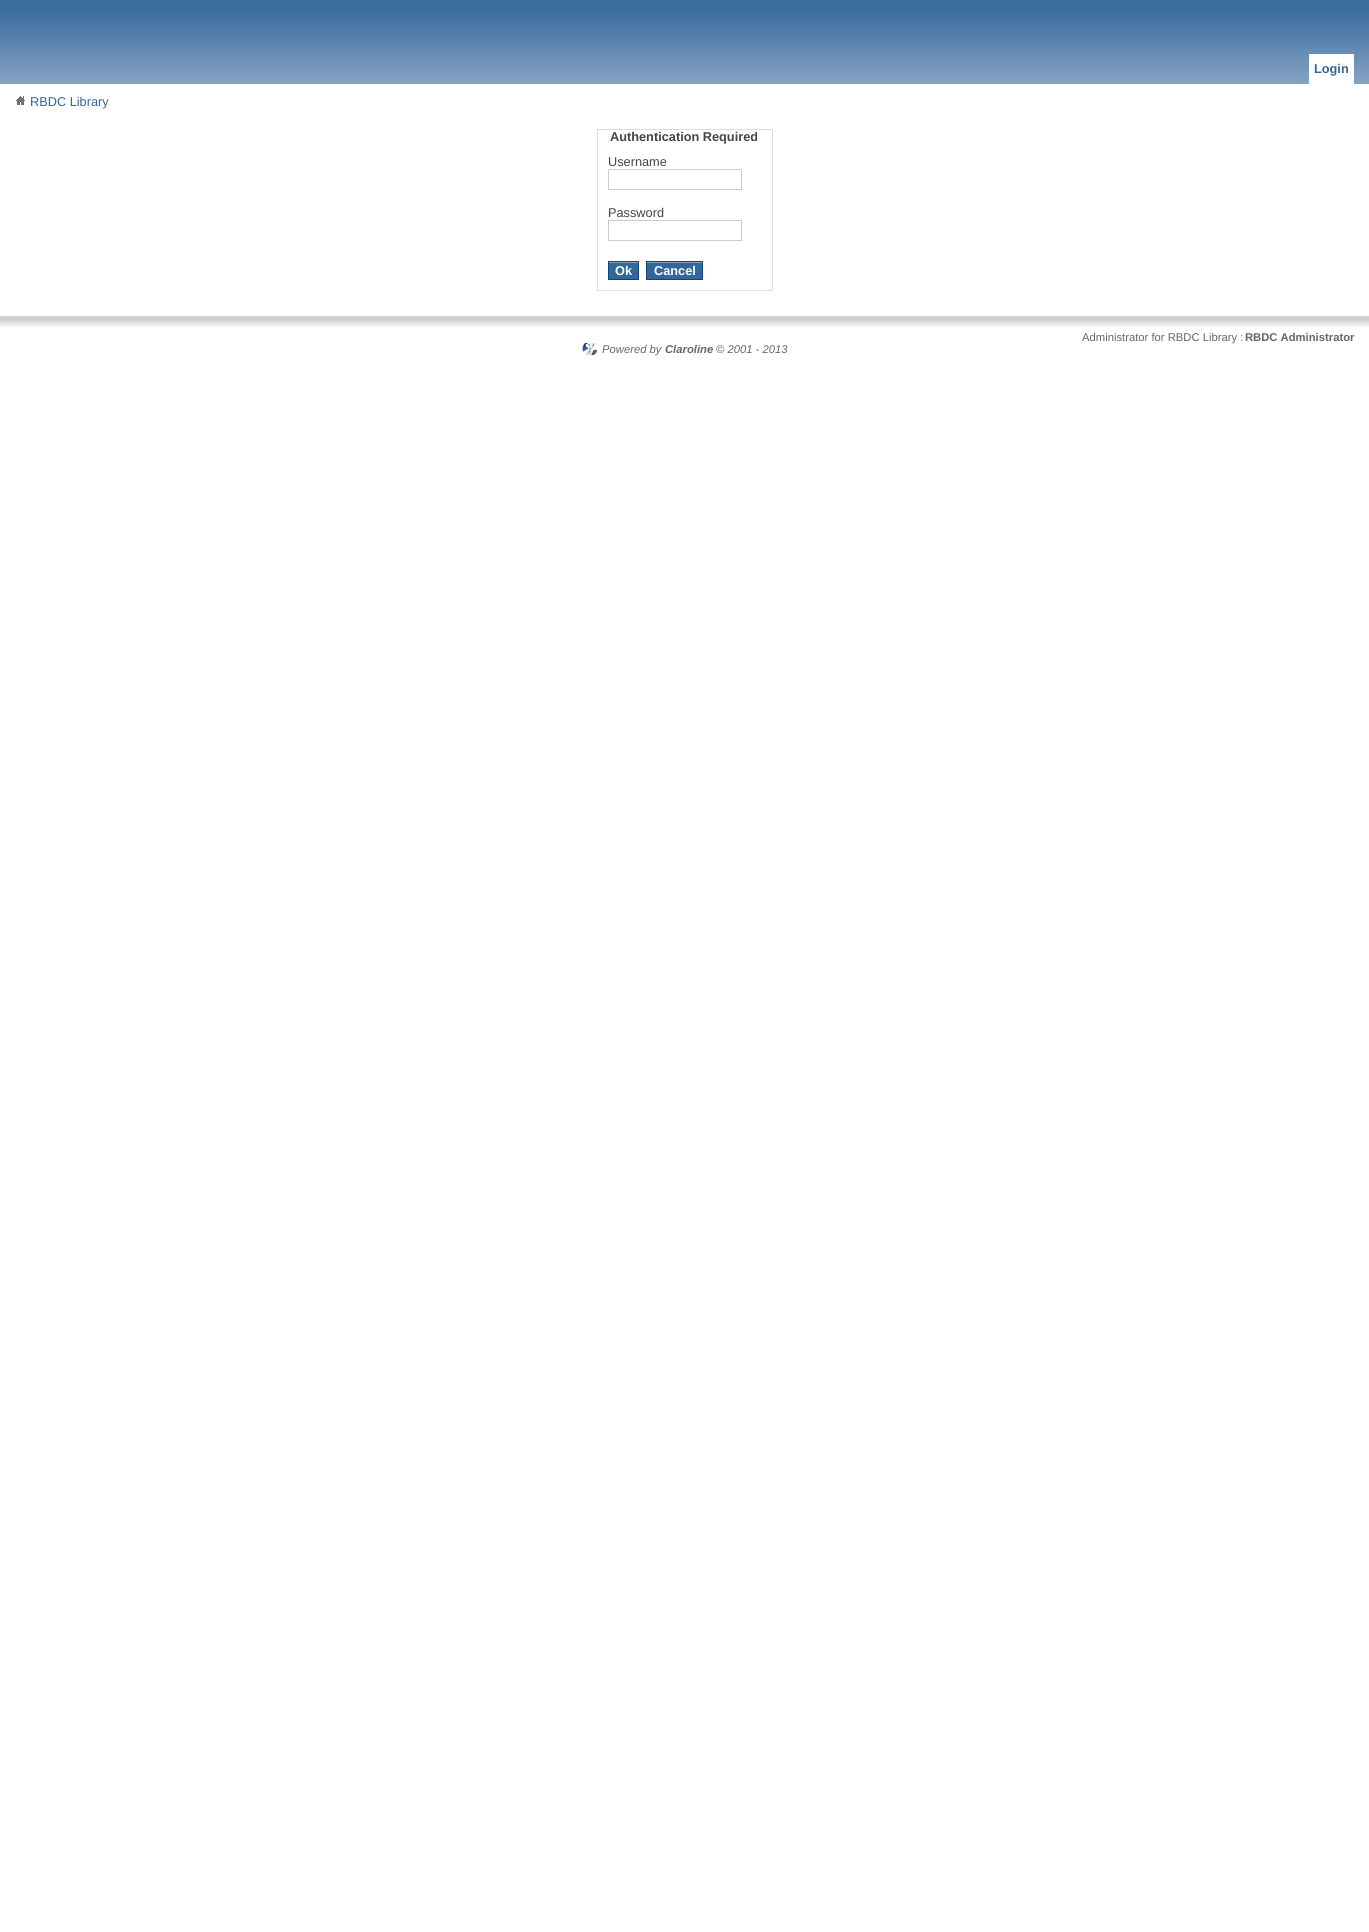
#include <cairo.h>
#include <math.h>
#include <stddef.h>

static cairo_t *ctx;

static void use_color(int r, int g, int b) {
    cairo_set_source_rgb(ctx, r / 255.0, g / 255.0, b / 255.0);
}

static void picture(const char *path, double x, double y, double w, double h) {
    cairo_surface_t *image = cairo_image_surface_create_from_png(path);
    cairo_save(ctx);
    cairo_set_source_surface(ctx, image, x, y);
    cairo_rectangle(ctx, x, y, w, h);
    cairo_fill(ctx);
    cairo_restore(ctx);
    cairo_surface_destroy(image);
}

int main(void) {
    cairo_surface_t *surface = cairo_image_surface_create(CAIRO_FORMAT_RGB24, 1369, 1932);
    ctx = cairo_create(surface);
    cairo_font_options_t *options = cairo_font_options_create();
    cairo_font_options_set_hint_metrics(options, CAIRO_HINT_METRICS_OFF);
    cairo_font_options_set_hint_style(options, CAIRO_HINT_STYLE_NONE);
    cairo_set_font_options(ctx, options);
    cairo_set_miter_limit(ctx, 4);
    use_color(255, 255, 255);
    cairo_paint(ctx);
    picture("img1.png", 0, 0, 1369, 84);
    use_color(255, 255, 255);
    cairo_rectangle(ctx, 1309, 54, 45, 30);
    cairo_fill(ctx);
    cairo_select_font_face(ctx, "Liberation Sans", CAIRO_FONT_SLANT_NORMAL, CAIRO_FONT_WEIGHT_BOLD);
    cairo_set_font_size(ctx, 12.75);
    use_color(51, 102, 153);
    cairo_move_to(ctx, 1314, 73);
    cairo_show_text(ctx, "Login");
    picture("img2.png", 16, 96, 9, 9);
    cairo_select_font_face(ctx, "Liberation Sans", CAIRO_FONT_SLANT_NORMAL, CAIRO_FONT_WEIGHT_NORMAL);
    cairo_move_to(ctx, 30, 106);
    cairo_show_text(ctx, "RBDC Library");
    cairo_rectangle(ctx, 597.5, 129.5, 175, 161);
    use_color(221, 221, 221);
    cairo_set_line_width(ctx, 1);
    cairo_stroke(ctx);
    cairo_select_font_face(ctx, "Liberation Sans", CAIRO_FONT_SLANT_NORMAL, CAIRO_FONT_WEIGHT_BOLD);
    use_color(68, 68, 68);
    cairo_move_to(ctx, 610, 141);
    cairo_show_text(ctx, "Authentication Required");
    cairo_select_font_face(ctx, "Liberation Sans", CAIRO_FONT_SLANT_NORMAL, CAIRO_FONT_WEIGHT_NORMAL);
    cairo_move_to(ctx, 608, 166);
    cairo_show_text(ctx, "Username");
    cairo_rectangle(ctx, 608.5, 169.5, 133, 20);
    use_color(204, 204, 204);
    cairo_stroke(ctx);
    use_color(68, 68, 68);
    cairo_move_to(ctx, 608, 217);
    cairo_show_text(ctx, "Password");
    cairo_rectangle(ctx, 608.5, 220.5, 133, 20);
    use_color(204, 204, 204);
    cairo_stroke(ctx);
    use_color(51, 102, 153);
    cairo_rectangle(ctx, 609, 263, 29, 16);
    cairo_fill(ctx);
    use_color(133, 163, 194);
    cairo_rectangle(ctx, 608, 262, 31, 1);
    cairo_fill(ctx);
    cairo_rectangle(ctx, 608.5, 261.5, 30, 18);
    use_color(17, 68, 119);
    cairo_stroke(ctx);
    cairo_select_font_face(ctx, "Liberation Sans", CAIRO_FONT_SLANT_NORMAL, CAIRO_FONT_WEIGHT_BOLD);
    use_color(255, 255, 255);
    cairo_move_to(ctx, 615, 275);
    cairo_show_text(ctx, "Ok");
    use_color(51, 102, 153);
    cairo_rectangle(ctx, 647, 263, 55, 16);
    cairo_fill(ctx);
    use_color(133, 163, 194);
    cairo_rectangle(ctx, 646, 262, 57, 1);
    cairo_fill(ctx);
    cairo_rectangle(ctx, 646.5, 261.5, 56, 18);
    use_color(17, 68, 119);
    cairo_stroke(ctx);
    use_color(255, 255, 255);
    cairo_move_to(ctx, 654, 275);
    cairo_show_text(ctx, "Cancel");
    picture("img3.png", 0, 316, 1369, 11);
    cairo_select_font_face(ctx, "Liberation Sans", CAIRO_FONT_SLANT_NORMAL, CAIRO_FONT_WEIGHT_NORMAL);
    cairo_set_font_size(ctx, 11.25);
    use_color(102, 102, 102);
    cairo_move_to(ctx, 1082, 341);
    cairo_show_text(ctx, "Administrator for RBDC Library :");
    cairo_select_font_face(ctx, "Liberation Sans", CAIRO_FONT_SLANT_NORMAL, CAIRO_FONT_WEIGHT_BOLD);
    cairo_move_to(ctx, 1245, 341);
    cairo_show_text(ctx, "RBDC Administrator");
    picture("img4.png", 582, 343, 16, 12);
    cairo_select_font_face(ctx, "Liberation Sans", CAIRO_FONT_SLANT_ITALIC, CAIRO_FONT_WEIGHT_NORMAL);
    cairo_move_to(ctx, 602, 353);
    cairo_show_text(ctx, "Powered by");
    cairo_select_font_face(ctx, "Liberation Sans", CAIRO_FONT_SLANT_ITALIC, CAIRO_FONT_WEIGHT_BOLD);
    cairo_move_to(ctx, 665, 353);
    cairo_show_text(ctx, "Claroline");
    cairo_select_font_face(ctx, "Liberation Sans", CAIRO_FONT_SLANT_ITALIC, CAIRO_FONT_WEIGHT_NORMAL);
    cairo_move_to(ctx, 716, 353);
    cairo_show_text(ctx, "© 2001 - 2013");
    cairo_surface_write_to_png(surface, "result.png");
    cairo_font_options_destroy(options);
    cairo_destroy(ctx);
    cairo_surface_destroy(surface);
    return 0;
}
